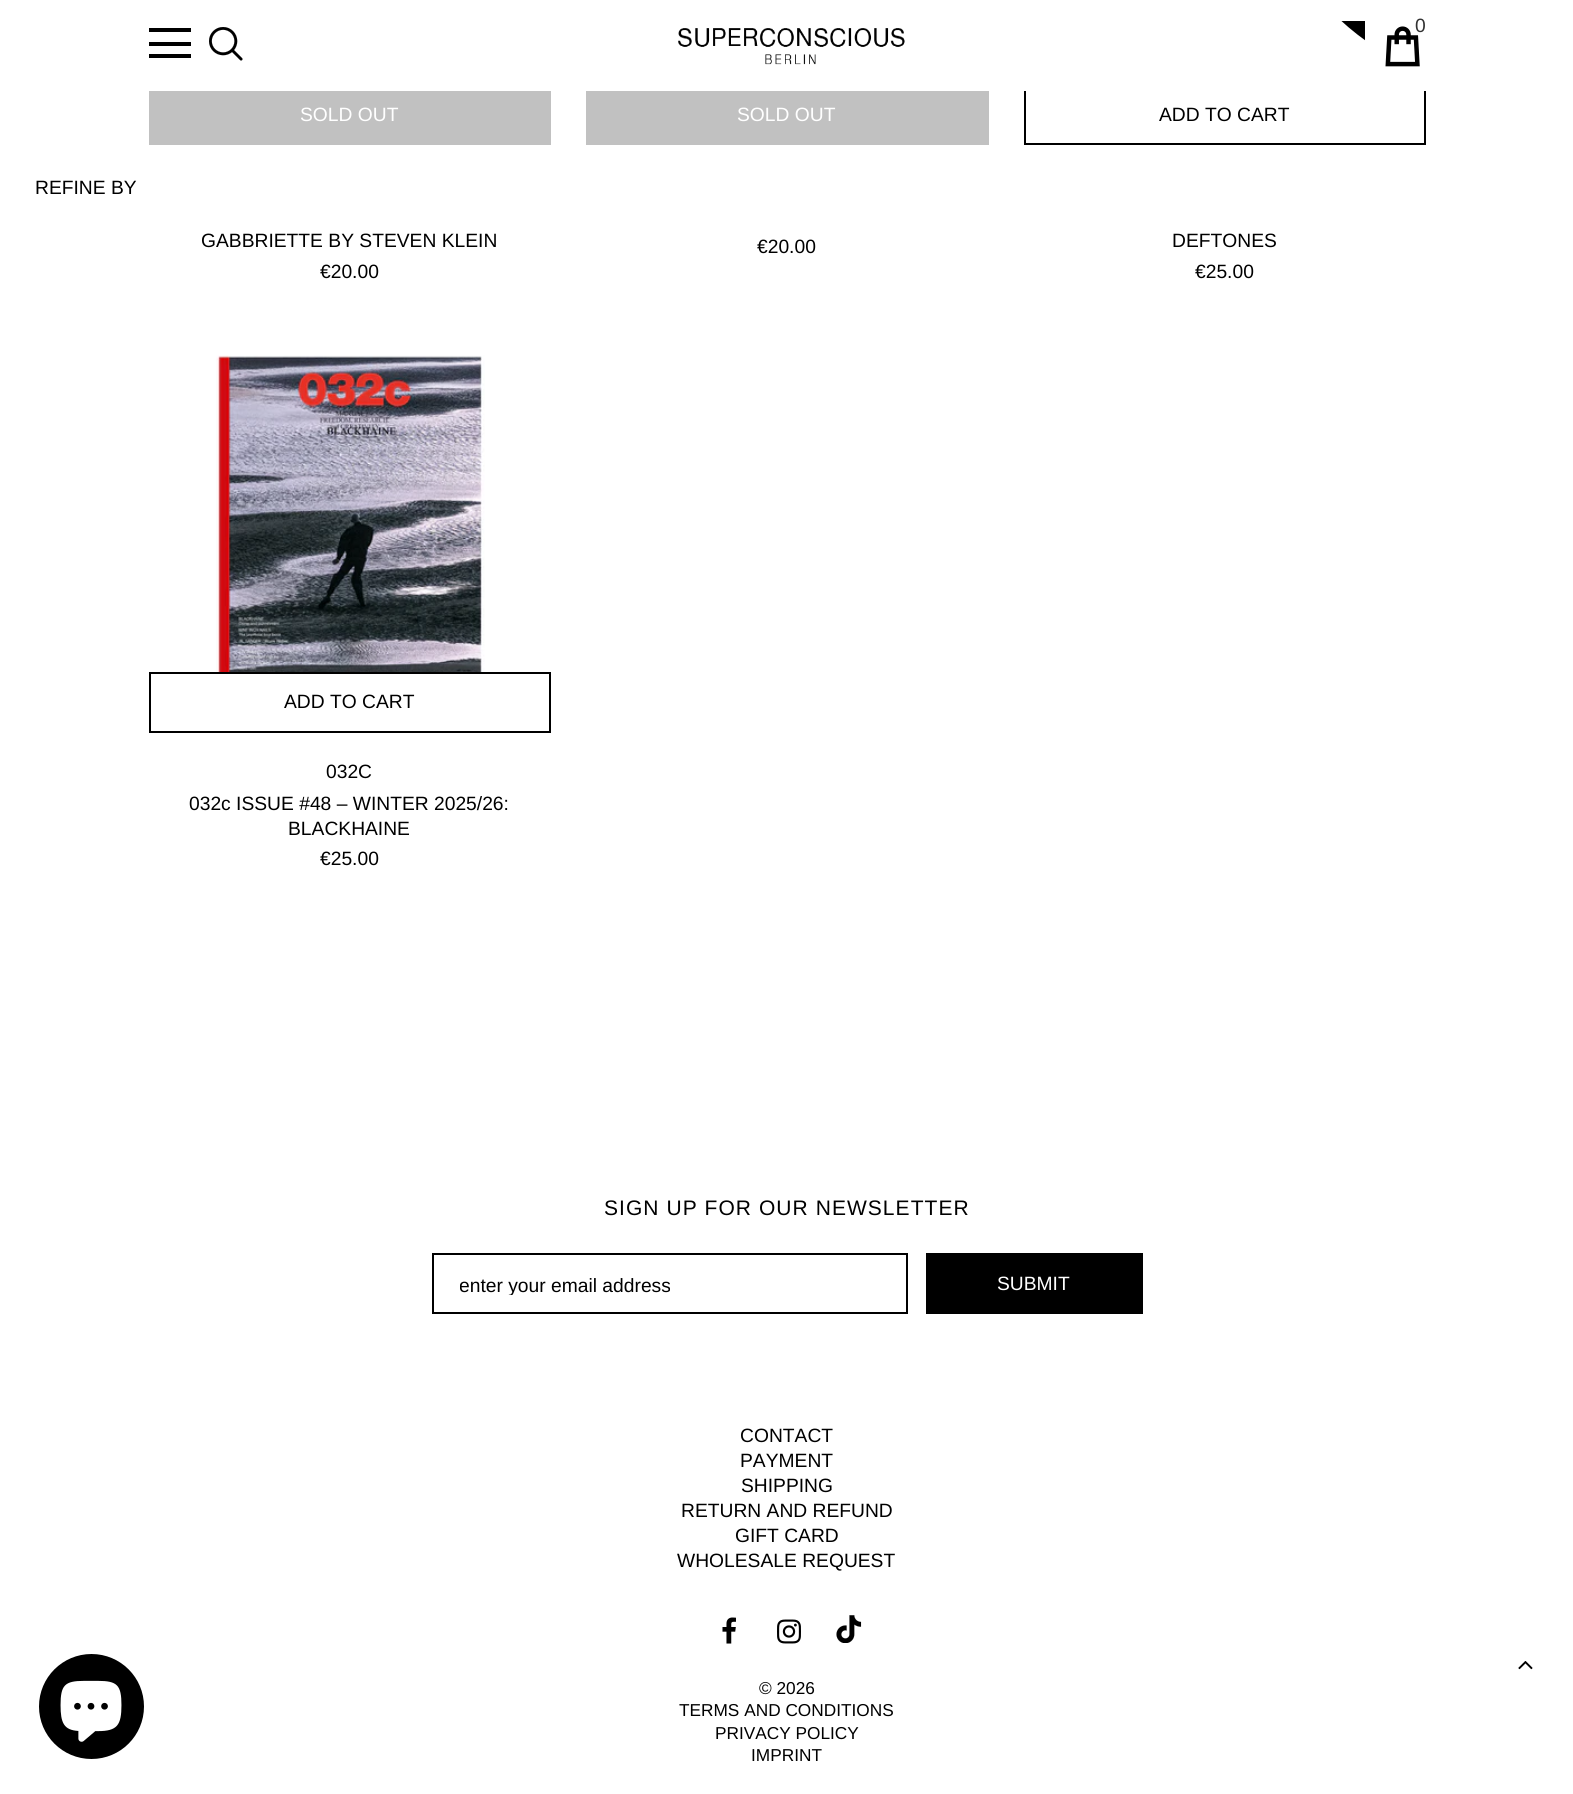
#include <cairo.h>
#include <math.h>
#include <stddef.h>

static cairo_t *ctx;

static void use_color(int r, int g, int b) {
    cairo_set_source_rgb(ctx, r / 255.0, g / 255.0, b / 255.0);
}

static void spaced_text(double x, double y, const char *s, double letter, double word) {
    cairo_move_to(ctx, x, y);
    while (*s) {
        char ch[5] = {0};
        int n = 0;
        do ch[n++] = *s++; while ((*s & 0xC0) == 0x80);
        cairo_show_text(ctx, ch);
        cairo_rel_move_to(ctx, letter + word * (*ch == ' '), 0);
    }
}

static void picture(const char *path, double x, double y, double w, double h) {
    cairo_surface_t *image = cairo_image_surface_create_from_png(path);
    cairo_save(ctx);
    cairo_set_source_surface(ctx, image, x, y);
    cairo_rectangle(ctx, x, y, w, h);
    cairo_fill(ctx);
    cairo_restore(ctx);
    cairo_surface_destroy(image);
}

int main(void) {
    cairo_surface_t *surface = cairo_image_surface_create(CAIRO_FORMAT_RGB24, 1573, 1794);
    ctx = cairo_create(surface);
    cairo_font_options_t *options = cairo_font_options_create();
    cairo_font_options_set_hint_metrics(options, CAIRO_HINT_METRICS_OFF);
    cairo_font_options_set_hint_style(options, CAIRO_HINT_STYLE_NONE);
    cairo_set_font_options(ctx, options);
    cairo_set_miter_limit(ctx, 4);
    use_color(255, 255, 255);
    cairo_paint(ctx);
    cairo_rectangle(ctx, 1025, 85, 400, 59);
    use_color(0, 0, 0);
    cairo_stroke(ctx);
    use_color(255, 255, 255);
    cairo_rectangle(ctx, 1024, 84, 402, 7);
    cairo_fill(ctx);
    picture("img1.png", 1341, 21, 24, 20);
    picture("img2.png", 1385, 26, 35, 41);
    cairo_select_font_face(ctx, "Liberation Sans", CAIRO_FONT_SLANT_NORMAL, CAIRO_FONT_WEIGHT_NORMAL);
    cairo_set_font_size(ctx, 19.25);
    use_color(50, 50, 50);
    cairo_move_to(ctx, 1415, 32);
    cairo_show_text(ctx, "0");
    use_color(0, 0, 0);
    cairo_rectangle(ctx, 149, 28, 42, 4);
    cairo_fill(ctx);
    cairo_rectangle(ctx, 149, 42, 42, 4);
    cairo_fill(ctx);
    cairo_rectangle(ctx, 149, 54, 42, 4);
    cairo_fill(ctx);
    picture("img3.png", 209, 27, 34, 34);
    picture("img4.png", 678, 28, 227, 37);
    cairo_move_to(ctx, 35, 194);
    cairo_show_text(ctx, "REFINE BY");
    use_color(193, 193, 193);
    cairo_rectangle(ctx, 149, 91, 402, 54);
    cairo_fill(ctx);
    use_color(255, 255, 255);
    cairo_move_to(ctx, 300, 121);
    cairo_show_text(ctx, "SOLD OUT");
    use_color(0, 0, 0);
    cairo_move_to(ctx, 201, 247);
    cairo_show_text(ctx, "GABBRIETTE BY STEVEN KLEIN");
    cairo_move_to(ctx, 320, 278);
    cairo_show_text(ctx, "€20.00");
    use_color(193, 193, 193);
    cairo_rectangle(ctx, 586, 91, 403, 54);
    cairo_fill(ctx);
    use_color(255, 255, 255);
    cairo_move_to(ctx, 737, 121);
    cairo_show_text(ctx, "SOLD OUT");
    use_color(0, 0, 0);
    cairo_move_to(ctx, 757, 253);
    cairo_show_text(ctx, "€20.00");
    cairo_move_to(ctx, 1159, 121);
    cairo_show_text(ctx, "ADD TO CART");
    cairo_move_to(ctx, 1172, 247);
    cairo_show_text(ctx, "DEFTONES");
    cairo_move_to(ctx, 1195, 278);
    cairo_show_text(ctx, "€25.00");
    picture("img5.png", 216, 355, 269, 317);
    cairo_rectangle(ctx, 150, 673, 400, 59);
    cairo_stroke(ctx);
    cairo_move_to(ctx, 284, 708);
    cairo_show_text(ctx, "ADD TO CART");
    cairo_move_to(ctx, 326, 778);
    cairo_show_text(ctx, "032C");
    cairo_move_to(ctx, 189, 810);
    cairo_show_text(ctx, "032c ISSUE #48 – WINTER 2025/26:");
    cairo_move_to(ctx, 288, 835);
    cairo_show_text(ctx, "BLACKHAINE");
    cairo_move_to(ctx, 320, 865);
    cairo_show_text(ctx, "€25.00");
    cairo_set_font_size(ctx, 21);
    spaced_text(604, 1215, "SIGN UP FOR OUR NEWSLETTER", 1.05, 0);
    cairo_rectangle(ctx, 433, 1254, 474, 59);
    cairo_stroke(ctx);
    cairo_save(ctx);
    cairo_rectangle(ctx, 460, 1274, 420, 21);
    cairo_clip(ctx);
    cairo_set_font_size(ctx, 19.25);
    cairo_move_to(ctx, 459, 1292);
    cairo_show_text(ctx, "enter your email address");
    cairo_restore(ctx);
    cairo_rectangle(ctx, 926, 1253, 217, 61);
    cairo_fill(ctx);
    cairo_set_font_size(ctx, 19.25);
    use_color(255, 255, 255);
    cairo_move_to(ctx, 997, 1290);
    cairo_show_text(ctx, "SUBMIT");
    use_color(0, 0, 0);
    cairo_move_to(ctx, 740, 1442);
    cairo_show_text(ctx, "CONTACT");
    cairo_move_to(ctx, 740, 1467);
    cairo_show_text(ctx, "PAYMENT");
    cairo_move_to(ctx, 741, 1492);
    cairo_show_text(ctx, "SHIPPING");
    cairo_move_to(ctx, 681, 1517);
    cairo_show_text(ctx, "RETURN AND REFUND");
    cairo_move_to(ctx, 735, 1542);
    cairo_show_text(ctx, "GIFT CARD");
    cairo_move_to(ctx, 677, 1567);
    cairo_show_text(ctx, "WHOLESALE REQUEST");
    picture("img6.png", 722, 1617, 14, 27);
    picture("img7.png", 777, 1619, 24, 25);
    picture("img8.png", 836, 1615, 26, 28);
    cairo_set_font_size(ctx, 17.25);
    cairo_move_to(ctx, 759, 1694);
    cairo_show_text(ctx, "© 2026");
    cairo_move_to(ctx, 679, 1716);
    cairo_show_text(ctx, "TERMS AND CONDITIONS");
    cairo_move_to(ctx, 715, 1739);
    cairo_show_text(ctx, "PRIVACY POLICY");
    cairo_move_to(ctx, 751, 1761);
    cairo_show_text(ctx, "IMPRINT");
    picture("img9.png", 1518, 1661, 15, 9);
    cairo_arc(ctx, 91.5, 1706.5, 52.5, 0, 2 * M_PI);
    cairo_fill(ctx);
    picture("img10.png", 60, 1680, 62, 62);
    cairo_surface_write_to_png(surface, "result.png");
    cairo_font_options_destroy(options);
    cairo_destroy(ctx);
    cairo_surface_destroy(surface);
    return 0;
}
